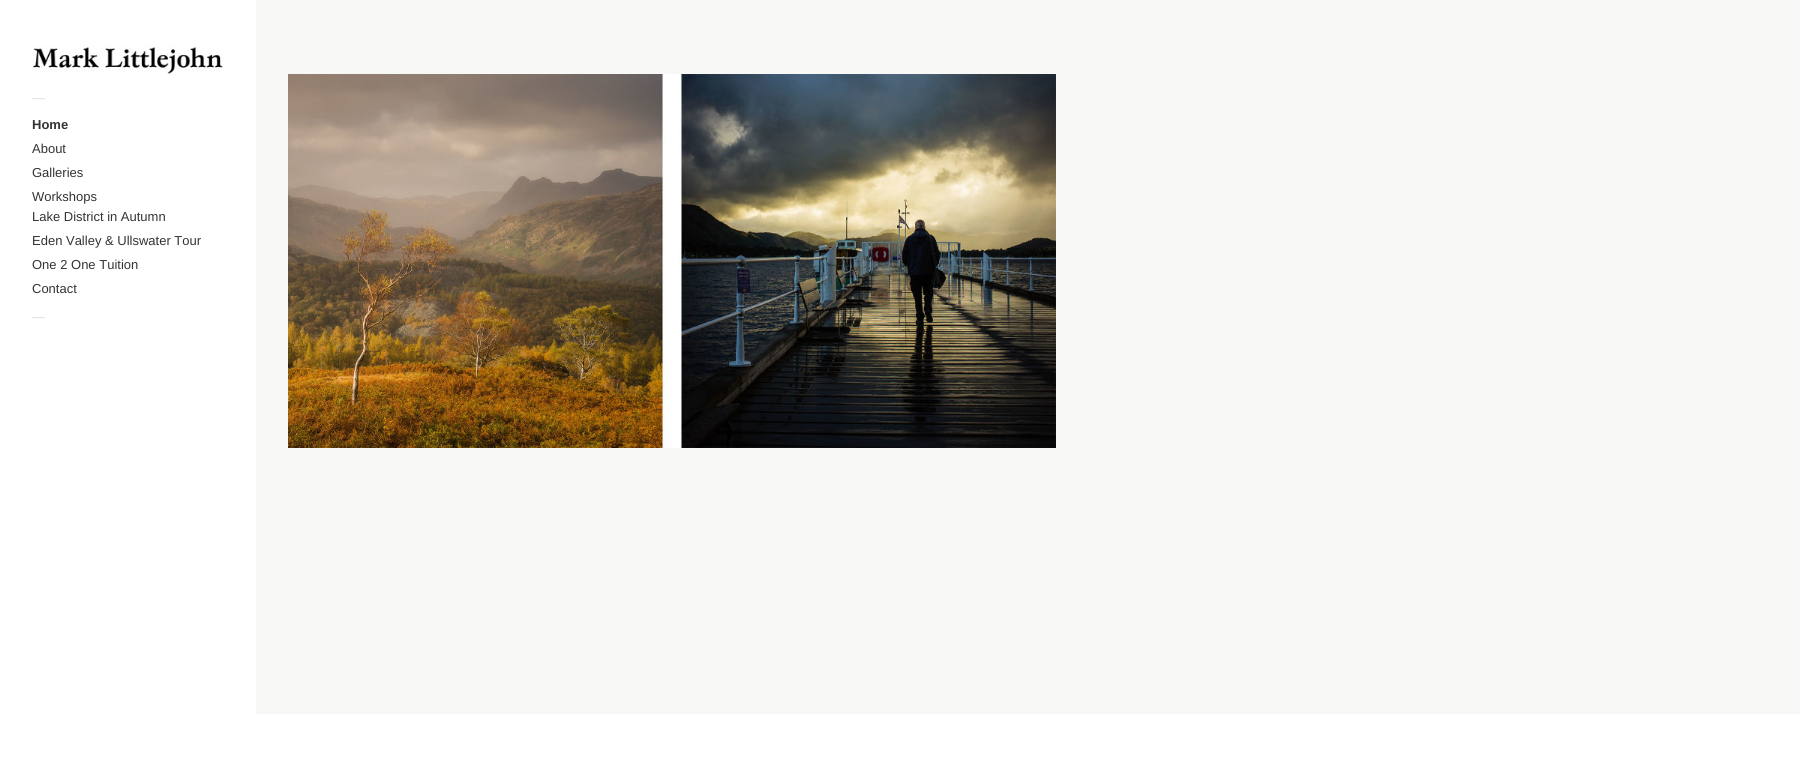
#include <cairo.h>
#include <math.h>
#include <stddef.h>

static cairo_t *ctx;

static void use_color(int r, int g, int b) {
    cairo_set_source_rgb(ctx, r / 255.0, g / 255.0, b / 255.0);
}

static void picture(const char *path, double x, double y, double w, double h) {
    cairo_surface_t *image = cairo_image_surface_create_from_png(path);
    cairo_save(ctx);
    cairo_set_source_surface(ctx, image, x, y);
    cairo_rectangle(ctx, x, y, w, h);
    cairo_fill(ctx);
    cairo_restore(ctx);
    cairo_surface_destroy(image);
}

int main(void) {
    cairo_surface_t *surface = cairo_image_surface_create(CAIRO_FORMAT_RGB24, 1800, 784);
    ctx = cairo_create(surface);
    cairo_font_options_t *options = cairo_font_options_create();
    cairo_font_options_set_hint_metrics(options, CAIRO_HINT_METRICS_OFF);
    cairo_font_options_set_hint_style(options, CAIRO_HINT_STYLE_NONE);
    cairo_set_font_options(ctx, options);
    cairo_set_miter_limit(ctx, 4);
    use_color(248, 248, 246);
    cairo_paint(ctx);
    use_color(255, 255, 255);
    cairo_rectangle(ctx, 0, 0, 256, 714);
    cairo_fill(ctx);
    picture("img1.png", 32, 46, 192, 28);
    cairo_select_font_face(ctx, "Liberation Sans", CAIRO_FONT_SLANT_NORMAL, CAIRO_FONT_WEIGHT_NORMAL);
    cairo_set_font_size(ctx, 13);
    use_color(221, 221, 221);
    cairo_move_to(ctx, 32, 102);
    cairo_show_text(ctx, "—");
    cairo_select_font_face(ctx, "Liberation Sans", CAIRO_FONT_SLANT_NORMAL, CAIRO_FONT_WEIGHT_BOLD);
    use_color(51, 51, 51);
    cairo_move_to(ctx, 32, 129);
    cairo_show_text(ctx, "Home");
    cairo_select_font_face(ctx, "Liberation Sans", CAIRO_FONT_SLANT_NORMAL, CAIRO_FONT_WEIGHT_NORMAL);
    cairo_move_to(ctx, 32, 153);
    cairo_show_text(ctx, "About");
    cairo_move_to(ctx, 32, 177);
    cairo_show_text(ctx, "Galleries");
    cairo_move_to(ctx, 32, 201);
    cairo_show_text(ctx, "Workshops");
    cairo_move_to(ctx, 32, 221);
    cairo_show_text(ctx, "Lake District in Autumn");
    cairo_move_to(ctx, 32, 245);
    cairo_show_text(ctx, "Eden Valley & Ullswater Tour");
    cairo_move_to(ctx, 32, 269);
    cairo_show_text(ctx, "One 2 One Tuition");
    cairo_move_to(ctx, 32, 293);
    cairo_show_text(ctx, "Contact");
    use_color(221, 221, 221);
    cairo_move_to(ctx, 32, 321);
    cairo_show_text(ctx, "—");
    picture("img2.png", 288, 74, 768, 374);
    use_color(255, 255, 255);
    cairo_rectangle(ctx, 0, 714, 1800, 70);
    cairo_fill(ctx);
    cairo_surface_write_to_png(surface, "result.png");
    cairo_font_options_destroy(options);
    cairo_destroy(ctx);
    cairo_surface_destroy(surface);
    return 0;
}
